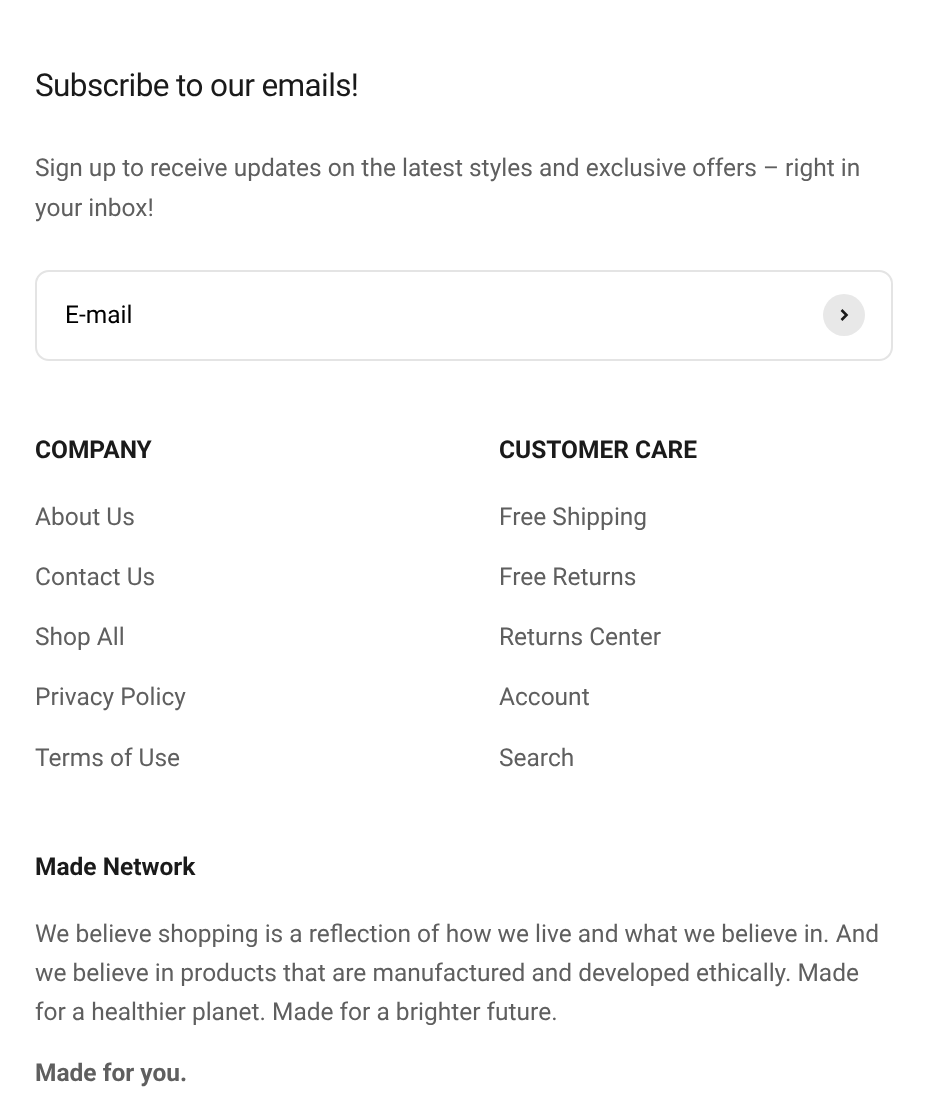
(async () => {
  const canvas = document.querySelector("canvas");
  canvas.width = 927;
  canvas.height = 1114;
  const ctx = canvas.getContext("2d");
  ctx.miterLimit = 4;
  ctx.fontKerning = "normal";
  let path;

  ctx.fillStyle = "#ffffff";
  ctx.fillRect(0, 0, 927, 1114);
  ctx.beginPath();
  ctx.roundRect(36, 271, 856, 89, 13);
  ctx.strokeStyle = "#e4e4e4";
  ctx.lineWidth = 2;
  ctx.stroke();
  ctx.fillStyle = "#e8e8e8";
  ctx.beginPath();
  ctx.arc(844, 315, 21, 0, Math.PI * 2);
  ctx.fill();
  path = new Path2D("M841.5 320L846.5 315L841.5 310");
  ctx.strokeStyle = "#1a1a1a";
  ctx.lineWidth = 2.6;
  ctx.stroke(path);
  ctx.letterSpacing = "-0.6px";
  ctx.font = "31.5px Roboto";
  ctx.fillStyle = "#1a1a1a";
  ctx.fillText("Subscribe to our emails!", 35, 96);
  ctx.letterSpacing = "0px";
  ctx.font = "24.5px Roboto";
  ctx.fillStyle = "#5f5f5f";
  ctx.fillText("Sign up to receive updates on the latest styles and exclusive offers – right in", 35, 176);
  ctx.fillText("your inbox!", 35, 216);
  ctx.fillStyle = "#000000";
  ctx.fillText("E-mail", 65, 323);
  ctx.font = "bold 24.5px Roboto";
  ctx.fillStyle = "#1a1a1a";
  ctx.fillText("COMPANY", 35, 458);
  ctx.font = "24.5px Roboto";
  ctx.fillStyle = "#5f5f5f";
  for (const [text, x, y] of [
    ["About Us", 35, 525],
    ["Contact Us", 35, 585],
    ["Shop All", 35, 645],
    ["Privacy Policy", 35, 705],
    ["Terms of Use", 35, 766],
  ]) {
    ctx.fillText(text, x, y);
  }
  ctx.font = "bold 24.5px Roboto";
  ctx.fillStyle = "#1a1a1a";
  ctx.fillText("CUSTOMER CARE", 499, 458);
  ctx.font = "24.5px Roboto";
  ctx.fillStyle = "#5f5f5f";
  for (const [text, x, y] of [
    ["Free Shipping", 499, 525],
    ["Free Returns", 499, 585],
    ["Returns Center", 499, 645],
    ["Account", 499, 705],
    ["Search", 499, 766],
  ]) {
    ctx.fillText(text, x, y);
  }
  ctx.font = "bold 24.5px Roboto";
  ctx.fillStyle = "#1a1a1a";
  ctx.fillText("Made Network", 35, 875);
  ctx.font = "24.5px Roboto";
  ctx.fillStyle = "#5f5f5f";
  for (const [text, x, y] of [
    ["We believe shopping is a reflection of how we live and what we believe in. And", 35, 942],
    ["we believe in products that are manufactured and developed ethically. Made", 35, 981],
    ["for a healthier planet. Made for a brighter future.", 35, 1020],
  ]) {
    ctx.fillText(text, x, y);
  }
  ctx.font = "bold 24.5px Roboto";
  ctx.fillText("Made for you.", 35, 1081);
})();
